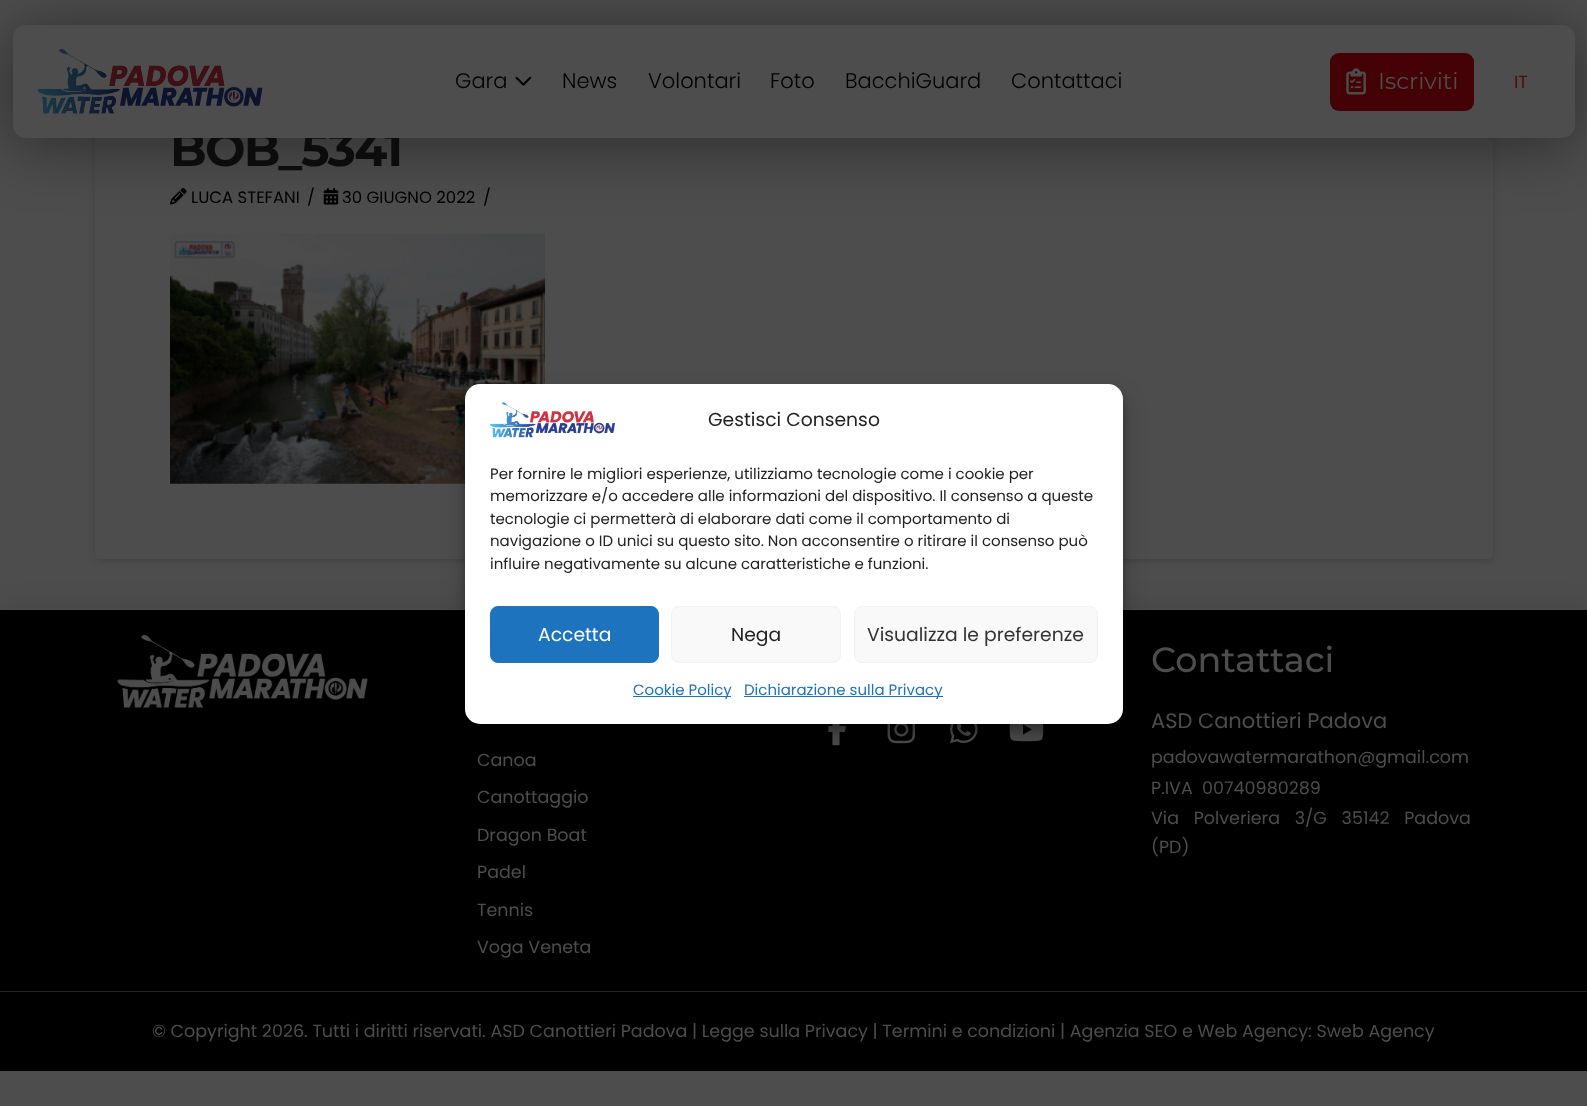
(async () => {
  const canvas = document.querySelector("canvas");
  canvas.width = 1587;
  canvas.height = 1106;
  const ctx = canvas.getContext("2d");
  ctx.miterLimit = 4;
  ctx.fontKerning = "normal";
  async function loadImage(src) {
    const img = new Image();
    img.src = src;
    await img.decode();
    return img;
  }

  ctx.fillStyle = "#4d4d4d";
  ctx.fillRect(0, 0, 1587, 1106);
  ctx.fillStyle = "rgba(0, 0, 0, 0.13)";
  ctx.filter = "blur(3px)";
  ctx.beginPath();
  ctx.roundRect(95, 53, 1398, 508, 5);
  ctx.fill();
  ctx.filter = "none";
  ctx.fillStyle = "#4d4d4d";
  ctx.beginPath();
  ctx.roundRect(95, 50, 1398, 509, 5);
  ctx.fill();
  ctx.drawImage(await loadImage("img/4.png"), 170, 188, 17, 17);
  ctx.drawImage(await loadImage("img/5.png"), 323, 188, 16, 17);
  ctx.drawImage(await loadImage("img/6.png"), 170, 233, 375, 251);
  ctx.fillStyle = "rgba(0, 0, 0, 0.42)";
  ctx.filter = "blur(31px)";
  ctx.beginPath();
  ctx.roundRect(11, 30, 1565, 115, 14);
  ctx.fill();
  ctx.filter = "none";
  ctx.fillStyle = "rgba(0, 0, 0, 0.15)";
  ctx.filter = "blur(15.5px)";
  ctx.beginPath();
  ctx.rect(0, 613, 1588, 383);
  ctx.fill();
  ctx.filter = "none";
  for (const [x, y, w, h, color] of [
    [0, 610, 1587, 461, "#000000"],
    [0, 609, 1587, 1, "#4d4d4d"],
    [0, 991, 1587, 1, "#242424"],
  ]) {
    ctx.fillStyle = color;
    ctx.fillRect(x, y, w, h);
  }
  ctx.drawImage(await loadImage("img/7.png"), 117, 635, 251, 73);
  ctx.drawImage(await loadImage("img/8.png"), 828, 724, 18, 22);
  ctx.drawImage(await loadImage("img/9.png"), 887, 724, 29, 20);
  ctx.drawImage(await loadImage("img/10.png"), 950, 724, 28, 20);
  ctx.drawImage(await loadImage("img/11.png"), 1009, 724, 35, 18);
  ctx.fillStyle = "rgba(0, 0, 0, 0.23)";
  ctx.filter = "blur(4px)";
  ctx.beginPath();
  ctx.roundRect(465, 391, 658, 340, 15);
  ctx.fill();
  ctx.filter = "none";
  ctx.fillStyle = "rgba(0, 0, 0, 0.19)";
  ctx.filter = "blur(12.5px)";
  ctx.beginPath();
  ctx.roundRect(465, 396, 658, 340, 15);
  ctx.fill();
  ctx.filter = "none";
  ctx.fillStyle = "#ffffff";
  ctx.beginPath();
  ctx.roundRect(465, 384, 658, 340, 15);
  ctx.fill();
  ctx.drawImage(await loadImage("img/12.png"), 490, 402, 125, 36);
  ctx.fillStyle = "#1e73be";
  ctx.beginPath();
  ctx.roundRect(490.5, 606.5, 168, 56, 7.5);
  ctx.fill();
  ctx.strokeStyle = "#1e73be";
  ctx.stroke();
  ctx.fillStyle = "#f9f9f9";
  ctx.beginPath();
  ctx.roundRect(671.5, 606.5, 169, 56, 7.5);
  ctx.fill();
  ctx.strokeStyle = "#f2f2f2";
  ctx.stroke();
  ctx.beginPath();
  ctx.roundRect(854.5, 606.5, 243, 56, 7.5);
  ctx.fill();
  ctx.stroke();
  ctx.fillStyle = "#1e73be";
  ctx.fillRect(633, 696, 98, 1);
  ctx.fillRect(744, 696, 199, 1);
  ctx.letterSpacing = "-1.75px";
  ctx.font = "bold 48px Montserrat";
  ctx.fillStyle = "#0c0c0c";
  ctx.fillText("BOB_5341", 170, 166);
  ctx.fillStyle = "#4d4d4d";
  ctx.beginPath();
  ctx.roundRect(13, 25, 1562, 113, 13);
  ctx.fill();
  ctx.letterSpacing = "0px";
  ctx.font = "300 21px Poppins";
  ctx.fillStyle = "#000000";
  for (const [text, x, y] of [
    ["Contattaci", 1011, 88],
    ["BacchiGuard", 845, 88],
    ["Foto", 770, 88],
    ["Volontari", 648, 88],
    ["News", 562, 88],
  ]) {
    ctx.fillText(text, x, y);
  }
  ctx.drawImage(await loadImage("img/2.png"), 515, 76, 17, 10);
  ctx.fillText("Gara", 455, 88);
  ctx.fillStyle = "#440206";
  ctx.beginPath();
  ctx.roundRect(1330, 53, 144, 58, 9);
  ctx.fill();
  ctx.drawImage(await loadImage("img/3.png"), 1346, 68, 20, 27);
  ctx.font = "23px Montserrat";
  ctx.fillStyle = "#4d4d4d";
  ctx.fillText("Iscriviti", 1378, 89);
  ctx.font = "17.5px Poppins";
  ctx.fillStyle = "#4d0d06";
  ctx.fillText("IT", 1514, 88);
  ctx.drawImage(await loadImage("img/1.png"), 38, 49, 225, 65);
  ctx.font = "16.5px Poppins";
  ctx.fillStyle = "#000000";
  for (const [text, x, y] of [
    ["LUCA STEFANI", 191, 203],
    ["/", 307, 203],
    ["30 GIUGNO 2022", 342, 203],
    ["/", 483, 203],
  ]) {
    ctx.fillText(text, x, y);
  }
  ctx.font = "500 35px Montserrat";
  ctx.fillStyle = "#4d4d4d";
  ctx.fillText("Contattaci", 1151, 672);
  ctx.font = "21px Poppins";
  ctx.fillText("ASD Canottieri Padova", 1151, 728);
  ctx.font = "17.5px Poppins";
  ctx.fillText("padovawatermarathon@gmail.com", 1151, 763);
  ctx.fillText("P.IVA  00740980289", 1151, 794);
  ctx.wordSpacing = "10px";
  ctx.fillText("Via Polveriera 3/G 35142 Padova", 1151, 824);
  ctx.wordSpacing = "0px";
  for (const [text, x, y] of [
    ["(PD)", 1151, 853],
    ["Canoa", 477, 766],
    ["Canottaggio", 477, 803],
    ["Dragon Boat", 477, 841],
    ["Padel", 477, 878],
    ["Tennis", 477, 916],
    ["Voga Veneta", 477, 953],
    ["© Copyright 2026. Tutti i diritti riservati. ASD Canottieri Padova | Legge sulla Privacy | Termini e condizioni | Agenzia SEO e Web Agency: Sweb Agency", 152, 1037],
  ]) {
    ctx.fillText(text, x, y);
  }
  ctx.font = "18.75px Poppins";
  ctx.fillStyle = "#222222";
  ctx.fillText("Gestisci Consenso", 708, 426);
  ctx.font = "15px Poppins";
  for (const [text, x, y] of [
    ["Per fornire le migliori esperienze, utilizziamo tecnologie come i cookie per", 490, 479],
    ["memorizzare e/o accedere alle informazioni del dispositivo. Il consenso a queste", 490, 501],
    ["tecnologie ci permetterà di elaborare dati come il comportamento di", 490, 524],
    ["navigazione o ID unici su questo sito. Non acconsentire o ritirare il consenso può", 490, 546],
    ["influire negativamente su alcune caratteristiche e funzioni.", 490, 569],
  ]) {
    ctx.fillText(text, x, y);
  }
  ctx.font = "18.75px Poppins";
  ctx.fillStyle = "#ffffff";
  ctx.fillText("Accetta", 538, 641);
  ctx.fillStyle = "#222222";
  ctx.fillText("Nega", 731, 641);
  ctx.fillStyle = "#333333";
  ctx.fillText("Visualizza le preferenze", 867, 641);
  ctx.font = "15px Poppins";
  ctx.fillStyle = "#1e73be";
  ctx.fillText("Cookie Policy", 633, 695);
  ctx.fillText("Dichiarazione sulla Privacy", 744, 695);
})();
